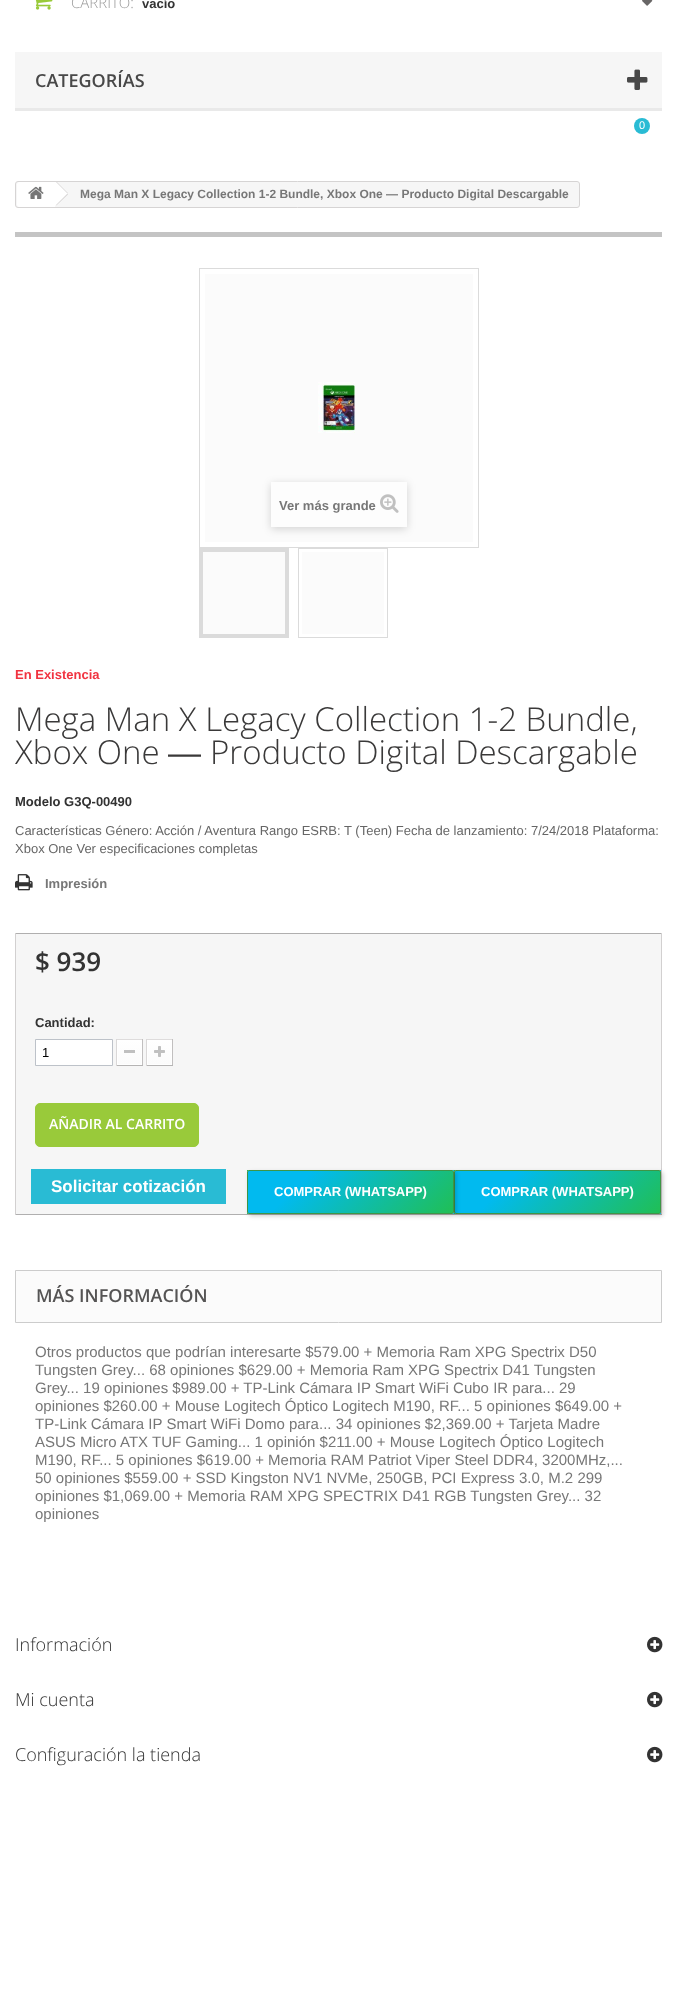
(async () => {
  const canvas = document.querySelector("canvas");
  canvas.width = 677;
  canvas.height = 2015;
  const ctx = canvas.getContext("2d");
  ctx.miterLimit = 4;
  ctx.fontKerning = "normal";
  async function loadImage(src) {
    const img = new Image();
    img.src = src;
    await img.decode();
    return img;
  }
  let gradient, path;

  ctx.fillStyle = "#ffffff";
  ctx.fillRect(0, 0, 677, 2015);
  ctx.drawImage(await loadImage("img/1.png"), 35, 0, 18, 10);
  ctx.drawImage(await loadImage("img/2.png"), 642, 0, 11, 6);
  ctx.fillStyle = "#f6f6f6";
  ctx.fillRect(15, 52, 647, 56);
  ctx.fillStyle = "#e9e9e9";
  ctx.fillRect(15, 108, 647, 3);
  ctx.drawImage(await loadImage("img/3.png"), 627, 69, 21, 21);
  ctx.fillStyle = "#29bbd4";
  ctx.beginPath();
  ctx.arc(642, 126, 8, 0, Math.PI * 2);
  ctx.fill();
  ctx.fillStyle = "#f6f6f6";
  ctx.beginPath();
  ctx.roundRect(15.5, 181.5, 564, 26, 2.5);
  ctx.fill();
  ctx.strokeStyle = "#d6d4d4";
  ctx.stroke();
  ctx.fillStyle = "#ffffff";
  ctx.beginPath();
  ctx.roundRect(17, 182, 38, 25, [3, 0, 0, 3]);
  ctx.fill();
  ctx.drawImage(await loadImage("img/4.png"), 28, 186, 16, 13);
  path = new Path2D("M57.5 182H54.5L44.5 192C44 193 44 194 44.5 195L54.5 205C55.5 205.5 56.5 205.5 57.5 205L67.5 195C68 194 68 193 67.5 192Z");
  ctx.fill(path);
  ctx.fillStyle = "#d6d4d4";
  path = new Path2D("M56.5 181.5L68 193L67.5 193.5L56 182Z");
  ctx.fill(path);
  path = new Path2D("M67.5 193.5L68 194.5L56.5 205.5L56 205Z");
  ctx.fill(path);
  ctx.fillStyle = "#c4c4c4";
  ctx.fillRect(15, 232, 647, 5);
  ctx.strokeStyle = "#dbdbdb";
  ctx.strokeRect(199.5, 268.5, 279, 279);
  ctx.fillStyle = "#fbfbfb";
  ctx.fillRect(205, 274, 268, 268);
  ctx.drawImage(await loadImage("img/5.png"), 318, 382, 37, 51);
  ctx.fillStyle = "rgba(0, 0, 0, 0.16)";
  ctx.filter = "blur(4px)";
  ctx.beginPath();
  ctx.rect(271, 484, 136, 45);
  ctx.fill();
  ctx.filter = "none";
  ctx.fillStyle = "#fdfdfd";
  ctx.fillRect(271, 482, 136, 45);
  ctx.drawImage(await loadImage("img/6.png"), 380, 494, 19, 19);
  ctx.strokeRect(199.5, 548.5, 89, 89);
  ctx.fillStyle = "#fbfbfb";
  ctx.beginPath();
  ctx.rect(201.5, 550.5, 85, 85);
  ctx.fill();
  ctx.lineWidth = 3;
  ctx.stroke();
  ctx.lineWidth = 1;
  ctx.strokeRect(298.5, 548.5, 89, 89);
  ctx.fillRect(302, 552, 82, 82);
  ctx.drawImage(await loadImage("img/7.png"), 15, 874, 18, 17);
  for (const [x, y, w, h, color] of [
    [16, 934, 645, 280, "#f6f6f6"],
    [15, 933, 647, 1, "#b0afaf"],
    [661, 933, 1, 282, "#d2d0d0"],
    [15, 1214, 647, 1, "#b0afaf"],
    [15, 933, 1, 282, "#d2d0d0"],
  ]) {
    ctx.fillStyle = color;
    ctx.fillRect(x, y, w, h);
  }
  ctx.fillStyle = "#ffffff";
  ctx.beginPath();
  ctx.rect(35.5, 1039.5, 77, 26);
  ctx.fill();
  ctx.strokeStyle = "#bdc2c9";
  ctx.stroke();
  for (const [x, y, w, h, color] of [
    [116, 1039, 27, 1, "#dedcdc"],
    [142, 1039, 1, 27, "#c1bfbf"],
    [116, 1065, 27, 1, "#b5b4b4"],
    [116, 1039, 1, 27, "#dad8d8"],
  ]) {
    ctx.fillStyle = color;
    ctx.fillRect(x, y, w, h);
  }
  gradient = ctx.createLinearGradient(130, 1041, 130, 1064);
  gradient.addColorStop(0, "#ffffff");
  gradient.addColorStop(1, "#fbfbfb");
  ctx.fillStyle = gradient;
  ctx.fillRect(118, 1041, 23, 23);
  ctx.strokeStyle = "#ffffff";
  ctx.strokeRect(117.5, 1040.5, 24, 24);
  for (const [x, y, w, h, color] of [
    [124, 1050, 11, 3, "#c0c0c0"],
    [146, 1039, 27, 1, "#dedcdc"],
    [172, 1039, 1, 27, "#c1bfbf"],
    [146, 1065, 27, 1, "#b5b4b4"],
    [146, 1039, 1, 27, "#dad8d8"],
  ]) {
    ctx.fillStyle = color;
    ctx.fillRect(x, y, w, h);
  }
  gradient = ctx.createLinearGradient(160, 1041, 160, 1064);
  gradient.addColorStop(0, "#ffffff");
  gradient.addColorStop(1, "#fbfbfb");
  ctx.fillStyle = gradient;
  ctx.fillRect(148, 1041, 23, 23);
  ctx.strokeRect(147.5, 1040.5, 24, 24);
  ctx.drawImage(await loadImage("img/8.png"), 154, 1046, 11, 11);
  ctx.fillStyle = "#99ca3a";
  ctx.beginPath();
  ctx.roundRect(35.5, 1103.5, 163, 43, 4.5);
  ctx.fill();
  ctx.strokeStyle = "#99ca3a";
  ctx.stroke();
  ctx.fillStyle = "#29bbd4";
  ctx.fillRect(31, 1169, 195, 35);
  ctx.fillStyle = "rgba(0, 0, 0, 0.2)";
  ctx.filter = "blur(2px)";
  ctx.beginPath();
  ctx.roundRect(456, 1172, 207, 44, 2);
  ctx.fill();
  ctx.filter = "none";
  gradient = ctx.createLinearGradient(414, 1212, 291, 1088);
  gradient.addColorStop(0, "#20bf55");
  gradient.addColorStop(0.74, "#01baef");
  ctx.fillStyle = gradient;
  ctx.fillRect(454, 1170, 1, 1);
  gradient = ctx.createLinearGradient(619, 1254, 496, 1130);
  gradient.addColorStop(0, "#20bf55");
  gradient.addColorStop(0.74, "#01baef");
  ctx.fillStyle = gradient;
  ctx.fillRect(455, 1171, 205, 42);
  gradient = ctx.createLinearGradient(414, 1296, 291, 1172);
  gradient.addColorStop(0, "#20bf55");
  gradient.addColorStop(0.74, "#01baef");
  ctx.fillStyle = gradient;
  ctx.fillRect(454, 1213, 1, 1);
  gradient = ctx.createLinearGradient(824, 1212, 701, 1088);
  gradient.addColorStop(0, "#20bf55");
  gradient.addColorStop(0.74, "#01baef");
  ctx.fillStyle = gradient;
  ctx.fillRect(660, 1170, 1, 1);
  gradient = ctx.createLinearGradient(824, 1296, 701, 1172);
  gradient.addColorStop(0, "#20bf55");
  gradient.addColorStop(0.74, "#01baef");
  ctx.fillStyle = gradient;
  ctx.fillRect(660, 1213, 1, 1);
  ctx.beginPath();
  ctx.roundRect(454.5, 1170.5, 206, 43, 1.5);
  ctx.strokeStyle = "#3e9546";
  ctx.stroke();
  ctx.fillStyle = "rgba(0, 0, 0, 0.2)";
  ctx.filter = "blur(2px)";
  ctx.beginPath();
  ctx.roundRect(249, 1172, 207, 44, 2);
  ctx.fill();
  ctx.filter = "none";
  gradient = ctx.createLinearGradient(207, 1212, 84, 1088);
  gradient.addColorStop(0, "#20bf55");
  gradient.addColorStop(0.74, "#01baef");
  ctx.fillStyle = gradient;
  ctx.fillRect(247, 1170, 1, 1);
  gradient = ctx.createLinearGradient(617, 1212, 494, 1088);
  gradient.addColorStop(0, "#20bf55");
  gradient.addColorStop(0.74, "#01baef");
  ctx.fillStyle = gradient;
  ctx.fillRect(453, 1170, 1, 1);
  gradient = ctx.createLinearGradient(412, 1254, 289, 1130);
  gradient.addColorStop(0, "#20bf55");
  gradient.addColorStop(0.74, "#01baef");
  ctx.fillStyle = gradient;
  ctx.fillRect(248, 1171, 205, 42);
  gradient = ctx.createLinearGradient(207, 1296, 84, 1172);
  gradient.addColorStop(0, "#20bf55");
  gradient.addColorStop(0.74, "#01baef");
  ctx.fillStyle = gradient;
  ctx.fillRect(247, 1213, 1, 1);
  gradient = ctx.createLinearGradient(617, 1296, 494, 1172);
  gradient.addColorStop(0, "#20bf55");
  gradient.addColorStop(0.74, "#01baef");
  ctx.fillStyle = gradient;
  ctx.fillRect(453, 1213, 1, 1);
  ctx.beginPath();
  ctx.roundRect(247.5, 1170.5, 206, 43, 1.5);
  ctx.stroke();
  ctx.fillStyle = "#fbfbfb";
  ctx.beginPath();
  ctx.rect(15.5, 1270.5, 646, 52);
  ctx.fill();
  ctx.strokeStyle = "#cccccc";
  ctx.stroke();
  ctx.drawImage(await loadImage("img/9.png"), 647, 1636, 16, 17);
  ctx.drawImage(await loadImage("img/9.png"), 647, 1691, 16, 17);
  ctx.drawImage(await loadImage("img/9.png"), 647, 1746, 16, 17);
  ctx.font = "300 15px Open Sans";
  ctx.fillStyle = "#999999";
  ctx.fillText("CARRITO:", 71, 8);
  ctx.font = "bold 13px Liberation Sans";
  ctx.fillStyle = "#333333";
  ctx.fillText("vacío", 142, 8);
  ctx.font = "600 18px Open Sans";
  ctx.fillStyle = "#484848";
  ctx.fillText("CATEGORÍAS", 35, 87);
  ctx.font = "11px Liberation Sans";
  ctx.fillStyle = "#ffffff";
  ctx.fillText("0", 639, 129);
  ctx.font = "bold 12px Liberation Sans";
  ctx.fillStyle = "#777777";
  ctx.fillText("Mega Man X Legacy Collection 1-2 Bundle, Xbox One ― Producto Digital Descargable", 80, 198);
  ctx.font = "bold 13px Liberation Sans";
  ctx.fillText("Ver más grande", 279, 510);
  ctx.fillStyle = "#f13340";
  ctx.fillText("En Existencia", 15, 679);
  ctx.font = "300 33px Open Sans";
  ctx.fillStyle = "#3a3939";
  ctx.fillText("Mega Man X Legacy Collection 1-2 Bundle,", 15, 731);
  ctx.fillText("Xbox One", 15, 764);
  ctx.font = "33px Liberation Sans";
  ctx.fillText("―", 168, 764);
  ctx.font = "300 33px Open Sans";
  ctx.fillText("Producto Digital Descargable", 210, 764);
  ctx.font = "bold 13px Liberation Sans";
  ctx.fillStyle = "#333333";
  ctx.fillText("Modelo G3Q-00490", 15, 806);
  ctx.font = "13px Liberation Sans";
  ctx.fillStyle = "#666666";
  ctx.fillText("Características Género: Acción / Aventura Rango ESRB: T (Teen) Fecha de lanzamiento: 7/24/2018 Plataforma:", 15, 835);
  ctx.fillText("Xbox One Ver especificaciones completas", 15, 853);
  ctx.font = "bold 13px Liberation Sans";
  ctx.fillStyle = "#777777";
  ctx.fillText("Impresión", 45, 888);
  ctx.font = "600 26px Open Sans";
  ctx.fillStyle = "#333333";
  ctx.fillText("$ 939", 35, 971);
  ctx.font = "bold 13px Liberation Sans";
  ctx.fillText("Cantidad:", 35, 1027);
  ctx.font = "13px Liberation Sans";
  ctx.fillStyle = "#000000";
  ctx.fillText("1", 42, 1057);
  ctx.font = "600 14px Open Sans";
  ctx.fillStyle = "#ffffff";
  ctx.fillText("AÑADIR AL CARRITO", 49, 1129);
  ctx.font = "bold 17px Liberation Sans";
  ctx.fillText("Solicitar cotización", 51, 1192);
  ctx.font = "bold 13px Liberation Sans";
  ctx.fillText("COMPRAR (WHATSAPP)", 274, 1196);
  ctx.fillText("COMPRAR (WHATSAPP)", 481, 1196);
  ctx.font = "600 18px Open Sans";
  ctx.fillStyle = "#555454";
  ctx.fillText("MÁS INFORMACIÓN", 36, 1302);
  ctx.font = "15px Liberation Sans";
  ctx.fillStyle = "#777777";
  for (const [text, x, y] of [
    ["Otros productos que podrían interesarte $579.00 + Memoria Ram XPG Spectrix D50", 35, 1357],
    ["Tungsten Grey... 68 opiniones $629.00 + Memoria Ram XPG Spectrix D41 Tungsten", 35, 1375],
    ["Grey... 19 opiniones $989.00 + TP-Link Cámara IP Smart WiFi Cubo IR para... 29", 35, 1393],
    ["opiniones $260.00 + Mouse Logitech Óptico Logitech M190, RF... 5 opiniones $649.00 +", 35, 1411],
    ["TP-Link Cámara IP Smart WiFi Domo para... 34 opiniones $2,369.00 + Tarjeta Madre", 35, 1429],
    ["ASUS Micro ATX TUF Gaming... 1 opinión $211.00 + Mouse Logitech Óptico Logitech", 35, 1447],
    ["M190, RF... 5 opiniones $619.00 + Memoria RAM Patriot Viper Steel DDR4, 3200MHz,...", 35, 1465],
    ["50 opiniones $559.00 + SSD Kingston NV1 NVMe, 250GB, PCI Express 3.0, M.2 299", 35, 1483],
    ["opiniones $1,069.00 + Memoria RAM XPG SPECTRIX D41 RGB Tungsten Grey... 32", 35, 1501],
    ["opiniones", 35, 1519],
  ]) {
    ctx.fillText(text, x, y);
  }
  ctx.font = "300 18px Open Sans";
  ctx.fillStyle = "#333333";
  for (const [text, x, y] of [
    ["Información", 15, 1651],
    ["Mi cuenta", 15, 1706],
    ["Configuración la tienda", 15, 1761],
  ]) {
    ctx.fillText(text, x, y);
  }
})();
